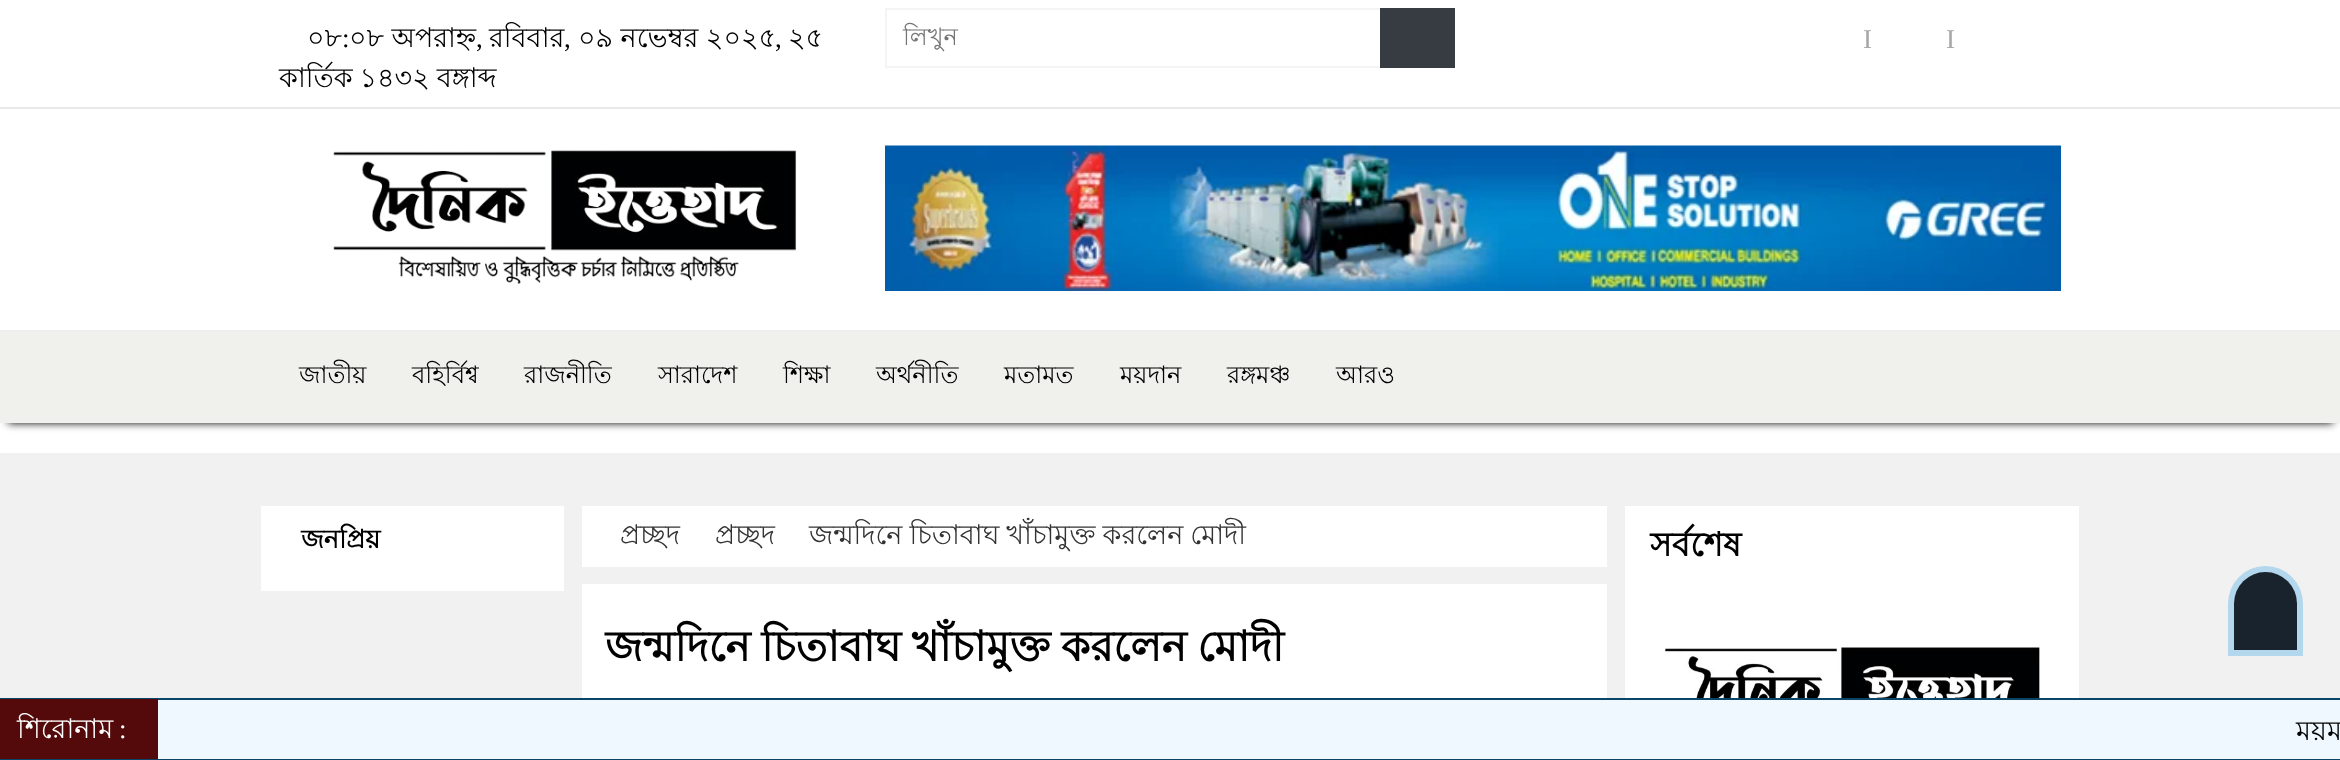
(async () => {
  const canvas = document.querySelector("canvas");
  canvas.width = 2340;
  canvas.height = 760;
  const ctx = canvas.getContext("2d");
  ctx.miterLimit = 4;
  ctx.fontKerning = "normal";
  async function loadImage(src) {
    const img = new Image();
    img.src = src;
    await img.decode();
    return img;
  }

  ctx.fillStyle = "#ffffff";
  ctx.fillRect(0, 0, 2340, 760);
  ctx.fillStyle = "#eeeeee";
  ctx.fillRect(0, 330, 2340, 2);
  ctx.strokeStyle = "#f4f4f4";
  ctx.lineWidth = 2;
  ctx.strokeRect(886, 9, 568, 58);
  ctx.fillStyle = "#363c42";
  ctx.fillRect(1380, 8, 75, 60);
  ctx.fillStyle = "#eae8e8";
  ctx.fillRect(0, 107, 2340, 2);
  ctx.drawImage(await loadImage("img/1.png"), 333, 150, 464, 134);
  ctx.drawImage(await loadImage("img/2.png"), 885, 145, 1176, 146);
  ctx.fillStyle = "#000000";
  ctx.filter = "blur(4px)";
  ctx.beginPath();
  ctx.rect(8, 347, 2325, 76);
  ctx.fill();
  ctx.filter = "none";
  for (const [x, y, w, h, color] of [
    [0, 332, 2340, 91, "#f0f0ed"],
    [0, 453, 2340, 245, "#f1f1f2"],
    [261, 506, 303, 85, "#ffffff"],
    [582, 506, 1025, 61, "#ffffff"],
    [582, 584, 1025, 114, "#ffffff"],
    [1625, 506, 454, 192, "#ffffff"],
  ]) {
    ctx.fillStyle = color;
    ctx.fillRect(x, y, w, h);
  }
  ctx.drawImage(await loadImage("img/3.png"), 1665, 647, 375, 51);
  ctx.fillStyle = "#b3d7ec";
  ctx.beginPath();
  ctx.roundRect(2228, 566, 75, 90, [37.5, 37.5, 0, 0]);
  ctx.fill();
  ctx.fillStyle = "#19232d";
  ctx.beginPath();
  ctx.roundRect(2234, 572, 63, 78, [31.5, 31.5, 0, 0]);
  ctx.fill();
  for (const [x, y, w, h, color] of [
    [158, 700, 2182, 59, "#f0f8ff"],
    [0, 698, 2340, 2, "#0a4466"],
    [0, 759, 2340, 1, "#0a4466"],
    [0, 699, 158, 60, "#540a0a"],
  ]) {
    ctx.fillStyle = color;
    ctx.fillRect(x, y, w, h);
  }
  ctx.font = "27px Lohit Bengali";
  ctx.fillStyle = "#000000";
  ctx.fillText("০৮", 307, 47);
  ctx.font = "27px Liberation Serif";
  ctx.fillText(":", 342, 47);
  ctx.font = "27px Lohit Bengali";
  ctx.fillText("০৮ অপরাহ্ন", 349, 47);
  ctx.font = "27px Liberation Serif";
  ctx.fillText(",", 476, 47);
  ctx.font = "27px Lohit Bengali";
  ctx.fillText("রবিবার", 489, 47);
  ctx.font = "27px Liberation Serif";
  ctx.fillText(",", 564, 47);
  ctx.font = "27px Lohit Bengali";
  ctx.fillText("০৯ নভেম্বর ২০২৫", 578, 47);
  ctx.font = "27px Liberation Serif";
  ctx.fillText(",", 775, 47);
  ctx.font = "27px Lohit Bengali";
  ctx.fillText("২৫", 788, 47);
  ctx.wordSpacing = "-0.5px";
  ctx.fillText("কার্তিক ১৪৩২ বঙ্গাব্দ", 279, 87);
  ctx.wordSpacing = "0px";
  ctx.font = "24px Lohit Bengali";
  ctx.fillStyle = "#757575";
  ctx.fillText("লিখুন", 903, 45);
  ctx.font = "27px Liberation Serif";
  ctx.fillStyle = "#a8a6a6";
  ctx.fillText("I", 1863, 48);
  ctx.fillText("I", 1946, 48);
  ctx.font = "24px Lohit Bengali";
  ctx.fillStyle = "#000000";
  for (const [text, x, y] of [
    ["জাতীয়", 299, 383],
    ["বহির্বিশ্ব", 412, 383],
    ["রাজনীতি", 524, 383],
    ["সারাদেশ", 658, 383],
    ["শিক্ষা", 783, 383],
    ["অর্থনীতি", 876, 383],
    ["মতামত", 1004, 383],
    ["ময়দান", 1120, 383],
    ["রঙ্গমঞ্চ", 1227, 383],
    ["আরও", 1336, 383],
  ]) {
    ctx.fillText(text, x, y);
  }
  ctx.font = "bold 25.5px Lohit Bengali";
  ctx.fillText("জনপ্রিয়", 301, 548);
  ctx.font = "27px Lohit Bengali";
  ctx.fillStyle = "#333333";
  ctx.fillText("প্রচ্ছদ", 620, 544);
  ctx.fillText("প্রচ্ছদ", 715, 544);
  ctx.wordSpacing = "-0.5px";
  ctx.fillText("জন্মদিনে চিতাবাঘ খাঁচামুক্ত করলেন মোদী", 809, 544);
  ctx.wordSpacing = "-1px";
  ctx.font = "bold 42px Lohit Bengali";
  ctx.fillStyle = "#000000";
  ctx.fillText("জন্মদিনে চিতাবাঘ খাঁচামুক্ত করলেন মোদী", 605, 661);
  ctx.wordSpacing = "0px";
  ctx.font = "bold 33px Lohit Bengali";
  ctx.fillText("সর্বশেষ", 1650, 556);
  ctx.font = "27px Lohit Bengali";
  ctx.fillStyle = "#ffffff";
  ctx.fillText("শিরোনাম", 17, 738);
  ctx.font = "27px Liberation Serif";
  ctx.fillText(":", 119, 738);
  ctx.wordSpacing = "-0.5px";
  ctx.font = "27px Lohit Bengali";
  ctx.fillStyle = "#000000";
  ctx.fillText("ময়ম", 2296, 740);
})();
